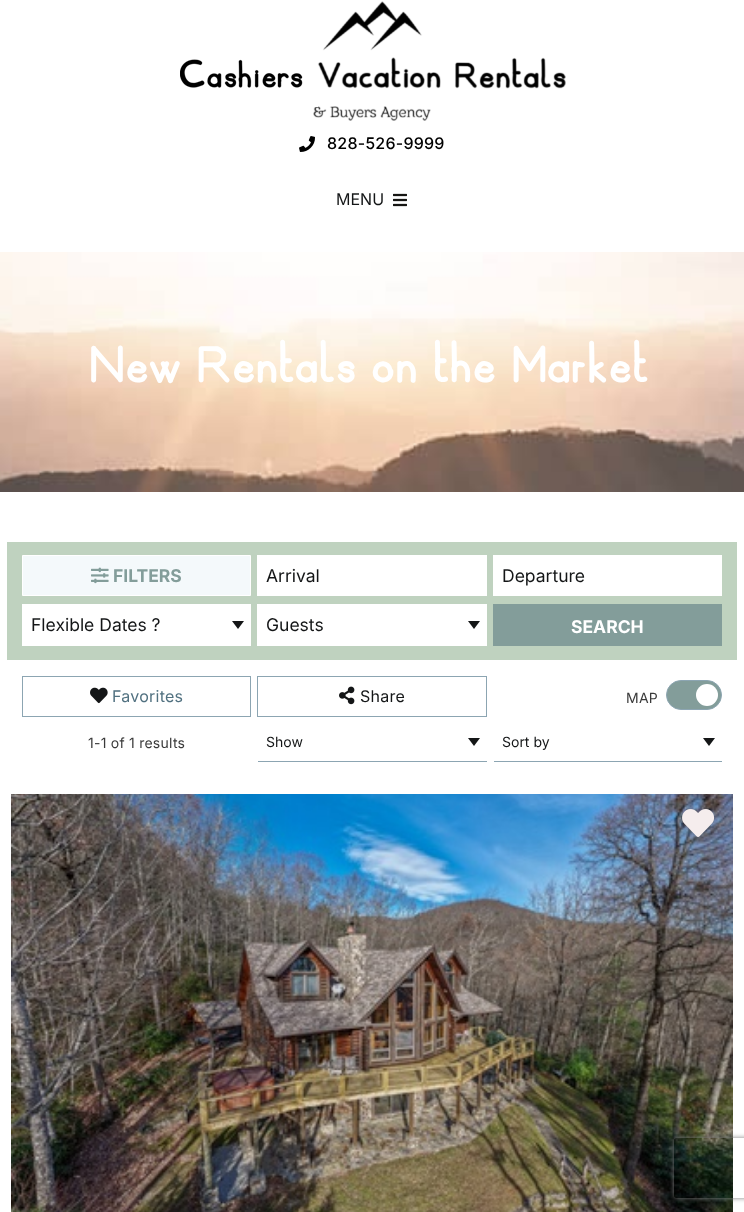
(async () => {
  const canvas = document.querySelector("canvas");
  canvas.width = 744;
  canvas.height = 1212;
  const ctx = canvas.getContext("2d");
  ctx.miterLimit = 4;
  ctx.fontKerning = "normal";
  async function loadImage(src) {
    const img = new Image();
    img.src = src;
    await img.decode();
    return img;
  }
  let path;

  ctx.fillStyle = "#ffffff";
  ctx.fillRect(0, 0, 744, 1212);
  ctx.drawImage(await loadImage("img/1.png"), 180, 1, 386, 120);
  ctx.drawImage(await loadImage("img/2.png"), 299, 136, 16, 16);
  ctx.drawImage(await loadImage("img/3.png"), 393, 193, 14, 14);
  ctx.drawImage(await loadImage("img/4.png"), 0, 252, 744, 240);
  ctx.fillStyle = "#bfd2bf";
  ctx.fillRect(7, 542, 730, 118);
  ctx.fillStyle = "#f4f9fb";
  ctx.beginPath();
  ctx.rect(22.5, 555.5, 228, 40);
  ctx.fill();
  ctx.strokeStyle = "#ffffff";
  ctx.stroke();
  ctx.drawImage(await loadImage("img/5.png"), 91, 567, 18, 17);
  for (const [x, y, w, h, color] of [
    [257, 555, 230, 41, "#ffffff"],
    [493, 555, 229, 41, "#ffffff"],
    [22, 604, 229, 42, "#ffffff"],
  ]) {
    ctx.fillStyle = color;
    ctx.fillRect(x, y, w, h);
  }
  ctx.fillStyle = "#141617";
  path = new Path2D("M232 621L238 629L244 621");
  ctx.fill(path);
  ctx.fillStyle = "#ffffff";
  ctx.fillRect(257, 604, 230, 42);
  ctx.fillStyle = "#141617";
  path = new Path2D("M468 621L474 629L480 621");
  ctx.fill(path);
  ctx.fillStyle = "#839d9a";
  ctx.fillRect(493, 604, 229, 42);
  ctx.strokeStyle = "#8ca5b2";
  ctx.strokeRect(22.5, 676.5, 228, 40);
  ctx.drawImage(await loadImage("img/6.png"), 90, 687, 18, 17);
  ctx.strokeRect(257.5, 676.5, 229, 40);
  ctx.drawImage(await loadImage("img/7.png"), 339, 686, 16, 19);
  ctx.beginPath();
  ctx.roundRect(666.5, 680.5, 55, 29, 14.5);
  ctx.fill();
  ctx.stroke();
  ctx.fillStyle = "#ffffff";
  ctx.beginPath();
  ctx.arc(707, 695, 11, 0, Math.PI * 2);
  ctx.fill();
  ctx.fillStyle = "#141617";
  path = new Path2D("M468 738L474 746L480 738");
  ctx.fill(path);
  ctx.fillStyle = "#8ca5b2";
  ctx.fillRect(257, 761, 230, 1);
  ctx.fillStyle = "#ffffff";
  ctx.fillRect(257, 761, 1, 1);
  ctx.fillStyle = "#141617";
  path = new Path2D("M703 738L709 746L715 738");
  ctx.fill(path);
  ctx.fillStyle = "#8ca5b2";
  ctx.fillRect(493, 761, 229, 1);
  ctx.fillStyle = "#ffffff";
  ctx.fillRect(493, 761, 1, 1);
  ctx.drawImage(await loadImage("img/8.png"), 11, 794, 722, 418);
  ctx.drawImage(await loadImage("img/9.png"), 682, 809, 33, 28);
  ctx.save();
  path = new Path2D("M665 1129H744V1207H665ZM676 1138H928C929 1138 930 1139 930 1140V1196C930 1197 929 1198 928 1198H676C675 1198 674 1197 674 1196V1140C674 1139 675 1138 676 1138Z");
  ctx.clip(path, "evenodd");
  ctx.fillStyle = "#808080";
  ctx.filter = "blur(2.5px)";
  ctx.beginPath();
  ctx.roundRect(674, 1138, 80, 60, 2);
  ctx.fill();
  ctx.filter = "none";
  ctx.restore();
  ctx.letterSpacing = "0.25px";
  ctx.font = "500 16px Inter";
  ctx.fillStyle = "#000000";
  ctx.fillText("828-526-9999", 327, 149);
  ctx.letterSpacing = "0px";
  ctx.font = "16px Inter";
  ctx.fillStyle = "#141617";
  ctx.fillText("MENU", 336, 205);
  ctx.letterSpacing = "-0.8px";
  ctx.font = "bold 54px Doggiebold";
  ctx.fillStyle = "#ffffff";
  ctx.fillText("New Rentals on the Market", 92, 385);
  ctx.letterSpacing = "0px";
  ctx.font = "bold 17.5px Inter";
  ctx.fillStyle = "#839d9a";
  ctx.fillText("FILTERS", 113, 582);
  ctx.font = "17.5px Inter";
  ctx.fillStyle = "#141617";
  for (const [text, x, y] of [
    ["Arrival", 266, 582],
    ["Departure", 502, 582],
    ["Flexible Dates ?", 31, 631],
    ["Guests", 266, 631],
  ]) {
    ctx.fillText(text, x, y);
  }
  ctx.font = "bold 17.5px Inter";
  ctx.fillStyle = "#ffffff";
  ctx.fillText("SEARCH", 571, 633);
  ctx.letterSpacing = "0.25px";
  ctx.font = "16px Inter";
  ctx.fillStyle = "#517180";
  ctx.fillText("Favorites", 112, 702);
  ctx.fillStyle = "#141617";
  ctx.fillText("Share", 360, 702);
  ctx.font = "14px Inter";
  ctx.fillStyle = "#3a3a3a";
  ctx.fillText("MAP", 626, 703);
  ctx.fillText("1-1 of 1 results", 88, 748);
  ctx.letterSpacing = "0px";
  ctx.fillStyle = "#141617";
  ctx.fillText("Show", 266, 747);
  ctx.fillText("Sort by", 502, 747);
})();
